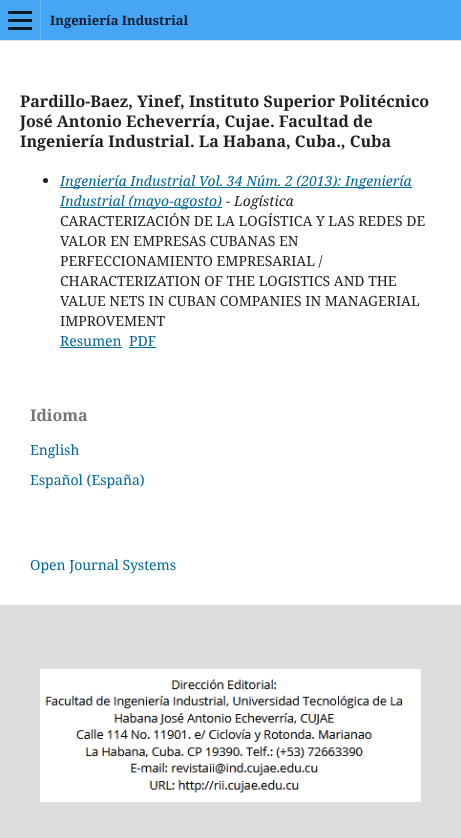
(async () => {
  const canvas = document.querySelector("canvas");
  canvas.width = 461;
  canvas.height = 838;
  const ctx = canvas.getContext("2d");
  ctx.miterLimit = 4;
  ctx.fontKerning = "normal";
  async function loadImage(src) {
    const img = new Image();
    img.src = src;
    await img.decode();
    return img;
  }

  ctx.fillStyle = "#ffffff";
  ctx.fillRect(0, 0, 461, 838);
  for (const [x, y, w, h, color] of [
    [0, 0, 461, 40, "#47a5f6"],
    [0, 40, 461, 1, "#dddddd"],
    [40, 0, 1, 40, "#6cb7f8"],
    [8, 27, 24, 3, "#0b1a27"],
    [8, 11, 24, 3, "#0b1a27"],
    [8, 19, 24, 3, "#0b1a27"],
  ]) {
    ctx.fillStyle = color;
    ctx.fillRect(x, y, w, h);
  }
  ctx.fillStyle = "#212121";
  ctx.beginPath();
  ctx.arc(45.5, 180.5, 2.5, 0, Math.PI * 2);
  ctx.fill();
  for (const [x, y, w, h, color] of [
    [60, 187, 352, 1, "#006798"],
    [60, 207, 162, 1, "#006798"],
    [60, 347, 62, 1, "#006798"],
    [129, 347, 27, 1, "#006798"],
    [0, 605, 461, 233, "#dddddd"],
  ]) {
    ctx.fillStyle = color;
    ctx.fillRect(x, y, w, h);
  }
  ctx.drawImage(await loadImage("img/1.png"), 40, 669, 381, 133);
  ctx.font = "bold 13px Noto Serif";
  ctx.fillStyle = "#0b1a27";
  ctx.fillText("Ingeniería Industrial", 50, 25);
  ctx.font = "bold 16px Noto Serif";
  ctx.fillStyle = "#212121";
  for (const [text, x, y] of [
    ["Pardillo-Baez, Yinef, Instituto Superior Politécnico", 20, 107],
    ["José Antonio Echeverría, Cujae. Facultad de", 20, 127],
    ["Ingeniería Industrial. La Habana, Cuba., Cuba", 20, 147],
  ]) {
    ctx.fillText(text, x, y);
  }
  ctx.font = "italic 14px Noto Serif";
  ctx.fillStyle = "#006798";
  ctx.fillText("Ingeniería Industrial Vol. 34 Núm. 2 (2013): Ingeniería", 60, 186);
  ctx.fillText("Industrial (mayo-agosto)", 60, 206);
  ctx.fillStyle = "#212121";
  ctx.fillText("- Logística", 226, 206);
  ctx.font = "14px Noto Serif";
  for (const [text, x, y] of [
    ["CARACTERIZACIÓN DE LA LOGÍSTICA Y LAS REDES DE", 60, 226],
    ["VALOR EN EMPRESAS CUBANAS EN", 60, 246],
    ["PERFECCIONAMIENTO EMPRESARIAL /", 60, 266],
    ["CHARACTERIZATION OF THE LOGISTICS AND THE", 60, 286],
    ["VALUE NETS IN CUBAN COMPANIES IN MANAGERIAL", 60, 306],
    ["IMPROVEMENT", 60, 326],
  ]) {
    ctx.fillText(text, x, y);
  }
  ctx.fillStyle = "#006798";
  ctx.fillText("Resumen", 60, 346);
  ctx.fillText("PDF", 129, 346);
  ctx.font = "bold 16px Noto Serif";
  ctx.fillStyle = "#757575";
  ctx.fillText("Idioma", 30, 421);
  ctx.font = "14px Noto Serif";
  ctx.fillStyle = "#006798";
  for (const [text, x, y] of [
    ["English", 30, 455],
    ["Español (España)", 30, 485],
    ["Open Journal Systems", 30, 570],
  ]) {
    ctx.fillText(text, x, y);
  }
})();
